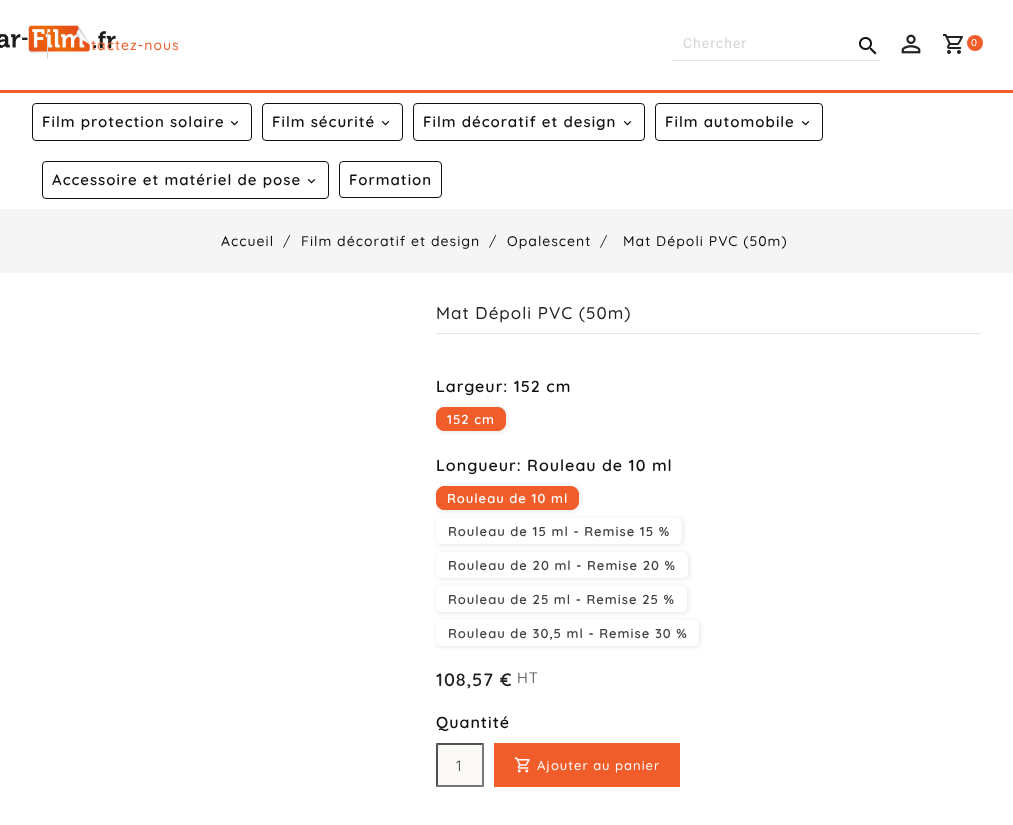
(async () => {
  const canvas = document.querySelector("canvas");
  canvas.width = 1013;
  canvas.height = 825;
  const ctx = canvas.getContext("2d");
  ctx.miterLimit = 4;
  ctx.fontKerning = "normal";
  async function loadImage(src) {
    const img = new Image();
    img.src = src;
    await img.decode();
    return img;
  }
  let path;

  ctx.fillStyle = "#ffffff";
  ctx.fillRect(0, 0, 1013, 825);
  ctx.fillStyle = "#f15d2a";
  ctx.fillRect(0, 90, 1013, 3);
  ctx.drawImage(await loadImage("img/1.png"), 0, 25, 116, 29);
  ctx.fillStyle = "#d7d7d7";
  ctx.fillRect(47, 31, 1, 28);
  ctx.fillStyle = "#e5e5e5";
  ctx.fillRect(672, 60, 209, 1);
  ctx.drawImage(await loadImage("img/2.png"), 859, 37, 18, 18);
  ctx.drawImage(await loadImage("img/3.png"), 901, 34, 20, 20);
  ctx.drawImage(await loadImage("img/4.png"), 943, 34, 20, 20);
  ctx.fillStyle = "#f15d2a";
  ctx.beginPath();
  ctx.arc(975, 43, 8, 0, Math.PI * 2);
  ctx.fill();
  ctx.beginPath();
  ctx.roundRect(32.5, 103.5, 219, 37, 3.5);
  ctx.strokeStyle = "#111111";
  ctx.stroke();
  ctx.drawImage(await loadImage("img/5.png"), 230, 121, 9, 5);
  ctx.beginPath();
  ctx.roundRect(262.5, 103.5, 140, 37, 3.5);
  ctx.stroke();
  ctx.drawImage(await loadImage("img/5.png"), 381, 121, 9, 5);
  ctx.beginPath();
  ctx.roundRect(413.5, 103.5, 231, 37, 3.5);
  ctx.stroke();
  ctx.drawImage(await loadImage("img/5.png"), 623, 121, 9, 5);
  ctx.beginPath();
  ctx.roundRect(655.5, 103.5, 167, 37, 3.5);
  ctx.stroke();
  ctx.drawImage(await loadImage("img/5.png"), 801, 121, 9, 5);
  ctx.beginPath();
  ctx.roundRect(42.5, 161.5, 286, 37, 3.5);
  ctx.stroke();
  ctx.drawImage(await loadImage("img/5.png"), 307, 179, 9, 5);
  ctx.beginPath();
  ctx.roundRect(339.5, 161.5, 102, 36, 3.5);
  ctx.stroke();
  ctx.fillStyle = "#f5f5f5";
  ctx.fillRect(0, 209, 1013, 64);
  ctx.fillStyle = "#e5e5e5";
  ctx.fillRect(436, 333, 545, 1);
  ctx.fillStyle = "rgba(0, 0, 0, 0.1)";
  ctx.filter = "blur(2.5px)";
  ctx.beginPath();
  ctx.roundRect(437, 408, 70, 24, 8);
  ctx.fill();
  ctx.filter = "none";
  ctx.fillStyle = "#f15d2a";
  ctx.beginPath();
  ctx.roundRect(436.5, 407.5, 69, 23, 7.5);
  ctx.fill();
  ctx.strokeStyle = "#f15d2a";
  ctx.stroke();
  ctx.fillStyle = "rgba(0, 0, 0, 0.1)";
  ctx.filter = "blur(2.5px)";
  ctx.beginPath();
  ctx.roundRect(437, 487, 143, 24, 8);
  ctx.fill();
  ctx.filter = "none";
  ctx.fillStyle = "#f15d2a";
  ctx.beginPath();
  ctx.roundRect(436.5, 486.5, 142, 23, 7.5);
  ctx.fill();
  ctx.stroke();
  ctx.fillStyle = "rgba(0, 0, 0, 0.1)";
  ctx.filter = "blur(2.5px)";
  ctx.beginPath();
  ctx.roundRect(437, 519, 246, 26, 5);
  ctx.fill();
  ctx.filter = "none";
  ctx.fillStyle = "#ffffff";
  ctx.beginPath();
  ctx.roundRect(437, 519, 244, 24, 4);
  ctx.fill();
  ctx.strokeStyle = "#ffffff";
  ctx.lineWidth = 2;
  ctx.stroke();
  ctx.fillStyle = "rgba(0, 0, 0, 0.1)";
  ctx.filter = "blur(2.5px)";
  ctx.beginPath();
  ctx.roundRect(437, 553, 252, 26, 5);
  ctx.fill();
  ctx.filter = "none";
  ctx.fillStyle = "#ffffff";
  ctx.beginPath();
  ctx.roundRect(437, 553, 250, 24, 4);
  ctx.fill();
  ctx.stroke();
  ctx.fillStyle = "rgba(0, 0, 0, 0.1)";
  ctx.filter = "blur(2.5px)";
  ctx.beginPath();
  ctx.roundRect(437, 587, 251, 26, 5);
  ctx.fill();
  ctx.filter = "none";
  ctx.fillStyle = "#ffffff";
  ctx.beginPath();
  ctx.roundRect(437, 587, 249, 24, 4);
  ctx.fill();
  ctx.stroke();
  ctx.fillStyle = "rgba(0, 0, 0, 0.1)";
  ctx.filter = "blur(2.5px)";
  ctx.beginPath();
  ctx.roundRect(437, 621, 263, 26, 5);
  ctx.fill();
  ctx.filter = "none";
  ctx.fillStyle = "#ffffff";
  ctx.beginPath();
  ctx.roundRect(437, 621, 261, 24, 4);
  ctx.fill();
  ctx.stroke();
  ctx.fillStyle = "#faf9f6";
  ctx.fillRect(436, 743, 48, 44);
  ctx.fillStyle = "#4f4f4f";
  path = new Path2D("M436 743H484L482 745H438Z");
  ctx.fill(path);
  ctx.fillStyle = "#767676";
  path = new Path2D("M484 743V787L482 785V745Z");
  ctx.fill(path);
  path = new Path2D("M484 787H436L438 785H482Z");
  ctx.fill(path);
  ctx.fillStyle = "#4f4f4f";
  path = new Path2D("M436 787V743L438 745V785Z");
  ctx.fill(path);
  ctx.fillStyle = "#f15d2a";
  ctx.fillRect(494, 743, 186, 44);
  ctx.drawImage(await loadImage("img/6.png"), 514, 757, 16, 16);
  ctx.letterSpacing = "1px";
  ctx.font = "500 14px Quicksand";
  ctx.fillText("tactez-nous", 91, 50);
  ctx.font = "14px Roboto";
  ctx.fillStyle = "#d6d5d3";
  ctx.fillText("Chercher", 683, 48);
  ctx.font = "500 10px Quicksand";
  ctx.fillStyle = "#ffffff";
  ctx.fillText("0", 971, 46);
  ctx.font = "600 15px Quicksand";
  ctx.fillStyle = "#111111";
  for (const [text, x, y] of [
    ["Film protection solaire", 42, 127],
    ["Film sécurité", 272, 127],
    ["Film décoratif et design", 423, 127],
    ["Film automobile", 665, 127],
    ["Accessoire et matériel de pose", 52, 185],
    ["Formation", 349, 185],
  ]) {
    ctx.fillText(text, x, y);
  }
  ctx.font = "500 14px Quicksand";
  ctx.fillText("Accueil", 221, 246);
  ctx.font = "14px Quicksand";
  ctx.fillText("/", 283, 246);
  ctx.font = "500 14px Quicksand";
  ctx.fillText("Film décoratif et design", 301, 246);
  ctx.font = "14px Quicksand";
  ctx.fillText("/", 489, 246);
  ctx.font = "500 14px Quicksand";
  ctx.fillText("Opalescent", 507, 246);
  ctx.font = "14px Quicksand";
  ctx.fillText("/", 600, 246);
  ctx.font = "500 14px Quicksand";
  ctx.fillText("Mat Dépoli PVC (50m)", 623, 246);
  ctx.font = "500 17px Quicksand";
  ctx.fillStyle = "#222222";
  ctx.fillText("Mat Dépoli PVC (50m)", 436, 319);
  ctx.font = "600 16px Quicksand";
  ctx.fillStyle = "#111111";
  ctx.fillText("Largeur: 152 cm", 436, 392);
  ctx.font = "600 13px Quicksand";
  ctx.fillStyle = "#ffffff";
  ctx.fillText("152 cm", 447, 424);
  ctx.font = "600 16px Quicksand";
  ctx.fillStyle = "#111111";
  ctx.fillText("Longueur: Rouleau de 10 ml", 436, 471);
  ctx.font = "600 13px Quicksand";
  ctx.fillStyle = "#ffffff";
  ctx.fillText("Rouleau de 10 ml", 447, 503);
  ctx.fillStyle = "#414141";
  for (const [text, x, y] of [
    ["Rouleau de 15 ml - Remise 15 %", 448, 536],
    ["Rouleau de 20 ml - Remise 20 %", 448, 570],
    ["Rouleau de 25 ml - Remise 25 %", 448, 604],
    ["Rouleau de 30,5 ml - Remise 30 %", 448, 638],
  ]) {
    ctx.fillText(text, x, y);
  }
  ctx.font = "600 18px Quicksand";
  ctx.fillStyle = "#222222";
  ctx.fillText("108,57 €", 436, 686);
  ctx.font = "15px Quicksand";
  ctx.fillStyle = "#414141";
  ctx.fillText("HT", 517, 683);
  ctx.font = "600 16px Quicksand";
  ctx.fillStyle = "#111111";
  ctx.fillText("Quantité", 436, 728);
  ctx.font = "15px Quicksand";
  ctx.fillStyle = "#414141";
  ctx.fillText("1", 456, 771);
  ctx.font = "500 13px Quicksand";
  ctx.fillStyle = "#ffffff";
  ctx.fillText("Ajouter au panier", 537, 770);
})();
